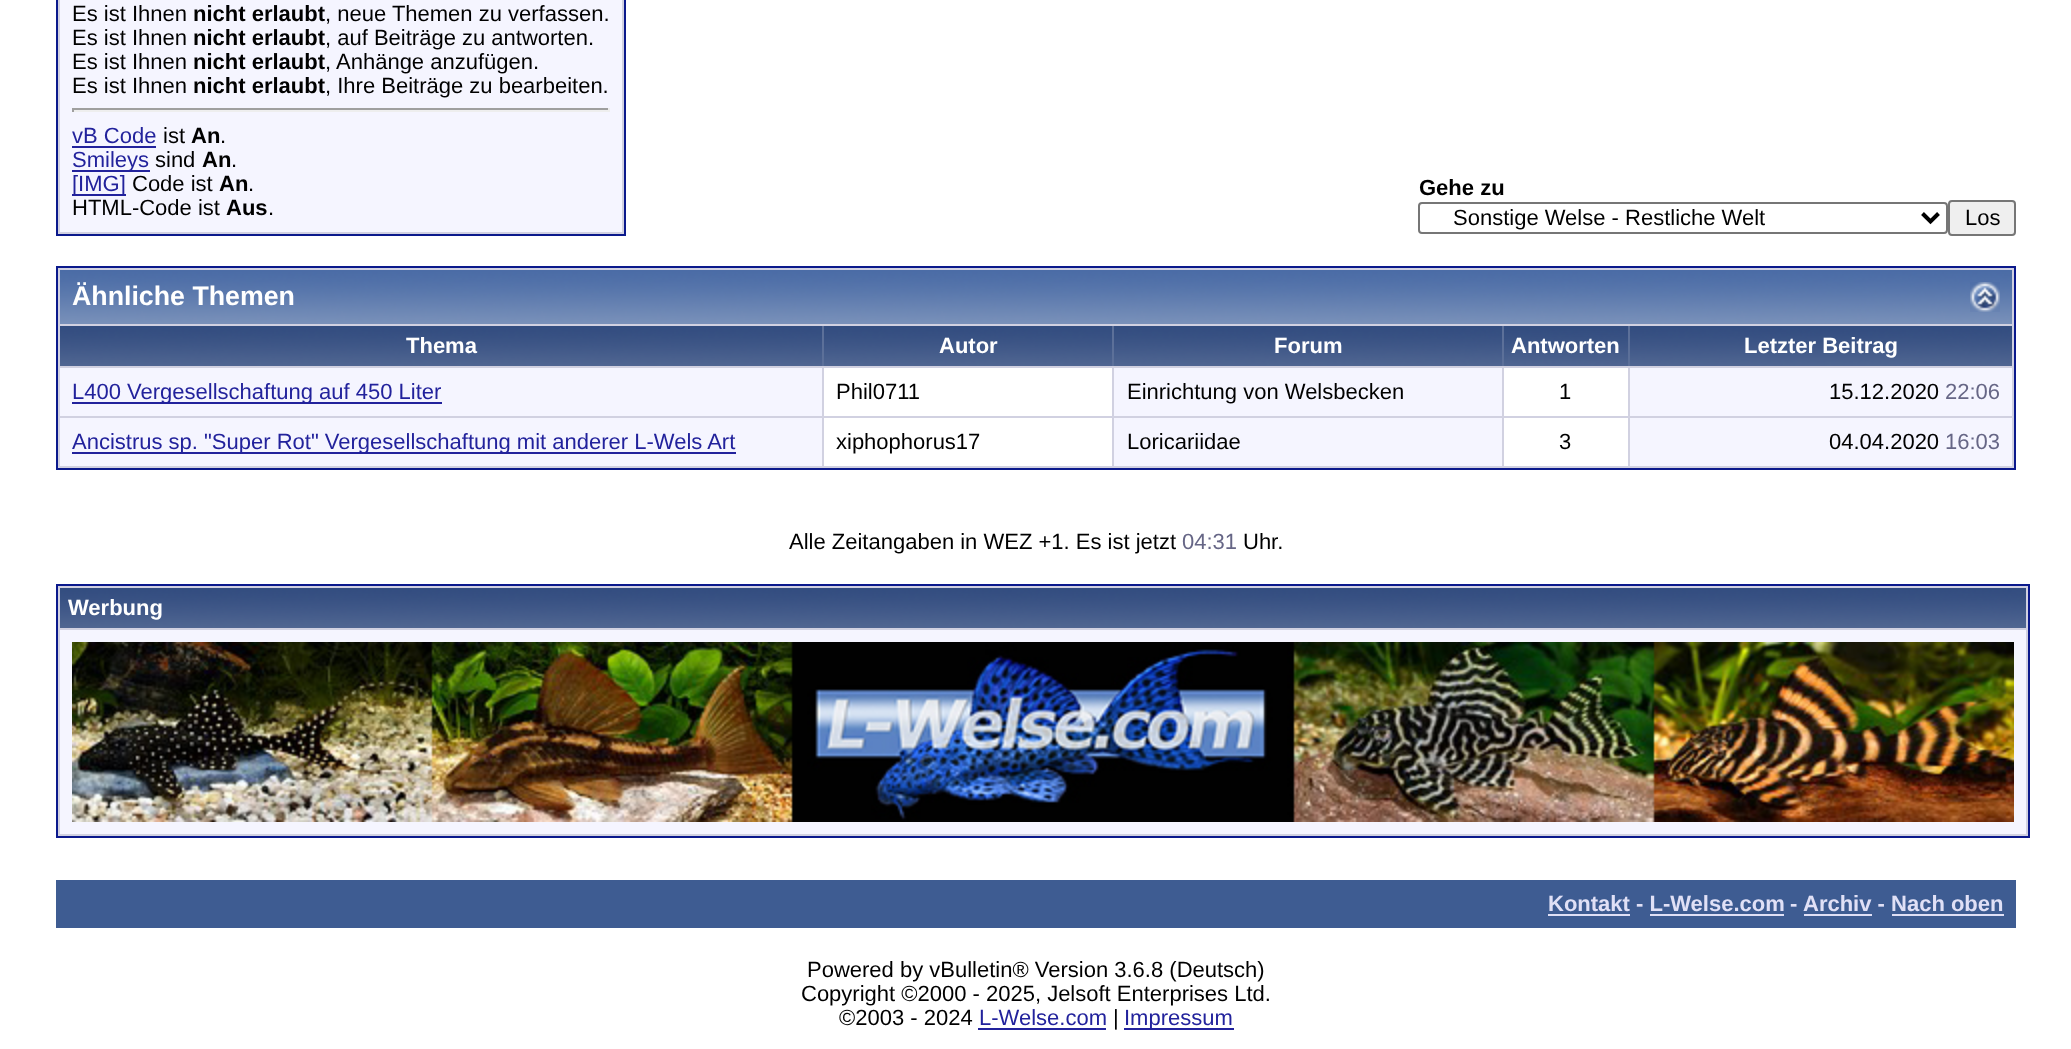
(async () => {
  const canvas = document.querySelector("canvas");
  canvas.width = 2071;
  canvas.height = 1049;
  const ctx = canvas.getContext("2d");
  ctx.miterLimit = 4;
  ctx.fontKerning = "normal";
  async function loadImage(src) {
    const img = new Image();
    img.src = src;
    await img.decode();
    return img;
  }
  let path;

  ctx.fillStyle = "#ffffff";
  ctx.fillRect(0, 0, 2071, 1049);
  ctx.fillStyle = "#d1d1e1";
  ctx.beginPath();
  ctx.rect(57, -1, 568, 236);
  ctx.fill();
  ctx.strokeStyle = "#0b198c";
  ctx.lineWidth = 2;
  ctx.stroke();
  for (const [x, y, w, h, color] of [
    [60, 0, 562, 232, "#f5f5ff"],
    [72, 108, 538, 2, "#9f9f9f"],
    [608, 108, 2, 4, "#eeeeee"],
    [72, 110, 538, 2, "#eeeeee"],
    [72, 108, 2, 4, "#9f9f9f"],
    [72, 146, 84, 2, "#22229c"],
    [72, 170, 78, 2, "#22229c"],
    [72, 194, 54, 2, "#22229c"],
  ]) {
    ctx.fillStyle = color;
    ctx.fillRect(x, y, w, h);
  }
  ctx.beginPath();
  ctx.roundRect(1419, 203, 528, 30, 3);
  ctx.strokeStyle = "#767676";
  ctx.stroke();
  path = new Path2D("M1922.5 213.5L1930.5 221.5L1938.5 213.5");
  ctx.strokeStyle = "#000000";
  ctx.lineWidth = 4;
  ctx.stroke(path);
  ctx.fillStyle = "#efefef";
  ctx.beginPath();
  ctx.roundRect(1949, 201, 66, 34, 3);
  ctx.fill();
  ctx.strokeStyle = "#767676";
  ctx.lineWidth = 2;
  ctx.stroke();
  ctx.fillStyle = "#d1d1e1";
  ctx.beginPath();
  ctx.rect(57, 267, 1958, 202);
  ctx.fill();
  ctx.strokeStyle = "#0b198c";
  ctx.stroke();
  ctx.drawImage(await loadImage("img/1.png"), 60, 270, 1952, 54);
  ctx.drawImage(await loadImage("img/2.png"), 1970, 282, 30, 30);
  ctx.fillStyle = "#5c7099";
  ctx.fillRect(822, 326, 808, 40);
  ctx.drawImage(await loadImage("img/3.png"), 60, 326, 762, 40);
  ctx.drawImage(await loadImage("img/4.png"), 824, 326, 288, 40);
  ctx.drawImage(await loadImage("img/5.png"), 1114, 326, 388, 40);
  ctx.drawImage(await loadImage("img/6.png"), 1504, 326, 124, 40);
  ctx.drawImage(await loadImage("img/7.png"), 1630, 326, 382, 40);
  for (const [x, y, w, h, color] of [
    [60, 368, 762, 48, "#f5f5ff"],
    [72, 402, 370, 2, "#22229c"],
    [824, 368, 288, 48, "#ffffff"],
    [1114, 368, 388, 48, "#f5f5ff"],
    [1504, 368, 124, 48, "#ffffff"],
    [1630, 368, 382, 48, "#f5f5ff"],
    [60, 418, 762, 48, "#f5f5ff"],
    [72, 452, 664, 2, "#22229c"],
    [824, 418, 288, 48, "#ffffff"],
    [1114, 418, 388, 48, "#f5f5ff"],
    [1504, 418, 124, 48, "#ffffff"],
    [1630, 418, 382, 48, "#f5f5ff"],
  ]) {
    ctx.fillStyle = color;
    ctx.fillRect(x, y, w, h);
  }
  ctx.fillStyle = "#d1d1e1";
  ctx.beginPath();
  ctx.rect(57, 585, 1972, 252);
  ctx.fill();
  ctx.stroke();
  ctx.drawImage(await loadImage("img/8.png"), 60, 588, 1966, 40);
  ctx.fillStyle = "#f5f5ff";
  ctx.fillRect(60, 630, 1966, 204);
  ctx.drawImage(await loadImage("img/9.png"), 72, 642, 1942, 180);
  for (const [x, y, w, h, color] of [
    [56, 880, 1960, 48, "#3e5c92"],
    [1548, 914, 82, 2, "#e0e0f6"],
    [1650, 914, 134, 2, "#e0e0f6"],
    [1804, 914, 68, 2, "#e0e0f6"],
    [1892, 914, 112, 2, "#e0e0f6"],
    [978, 1028, 128, 2, "#22229c"],
    [1124, 1028, 110, 2, "#22229c"],
  ]) {
    ctx.fillStyle = color;
    ctx.fillRect(x, y, w, h);
  }
  ctx.font = "22px Liberation Sans";
  ctx.fillStyle = "#000000";
  ctx.fillText("Es ist Ihnen", 72, 21);
  ctx.font = "bold 22px Liberation Sans";
  ctx.fillText("nicht erlaubt", 193, 21);
  ctx.font = "22px Liberation Sans";
  ctx.fillText(", neue Themen zu verfassen.", 325, 21);
  ctx.fillText("Es ist Ihnen", 72, 45);
  ctx.font = "bold 22px Liberation Sans";
  ctx.fillText("nicht erlaubt", 193, 45);
  ctx.font = "22px Liberation Sans";
  ctx.fillText(", auf Beiträge zu antworten.", 325, 45);
  ctx.fillText("Es ist Ihnen", 72, 69);
  ctx.font = "bold 22px Liberation Sans";
  ctx.fillText("nicht erlaubt", 193, 69);
  ctx.font = "22px Liberation Sans";
  ctx.fillText(", Anhänge anzufügen.", 325, 69);
  ctx.fillText("Es ist Ihnen", 72, 93);
  ctx.font = "bold 22px Liberation Sans";
  ctx.fillText("nicht erlaubt", 193, 93);
  ctx.font = "22px Liberation Sans";
  ctx.fillText(", Ihre Beiträge zu bearbeiten.", 325, 93);
  ctx.fillStyle = "#22229c";
  ctx.fillText("vB Code", 72, 143);
  ctx.fillStyle = "#000000";
  ctx.fillText("ist", 163, 143);
  ctx.font = "bold 22px Liberation Sans";
  ctx.fillText("An", 191, 143);
  ctx.font = "22px Liberation Sans";
  ctx.fillText(".", 220, 143);
  ctx.fillStyle = "#22229c";
  ctx.fillText("Smileys", 72, 167);
  ctx.fillStyle = "#000000";
  ctx.fillText("sind", 155, 167);
  ctx.font = "bold 22px Liberation Sans";
  ctx.fillText("An", 202, 167);
  ctx.font = "22px Liberation Sans";
  ctx.fillText(".", 231, 167);
  ctx.fillStyle = "#22229c";
  ctx.fillText("[IMG]", 72, 191);
  ctx.fillStyle = "#000000";
  ctx.fillText("Code ist", 132, 191);
  ctx.font = "bold 22px Liberation Sans";
  ctx.fillText("An", 219, 191);
  ctx.font = "22px Liberation Sans";
  ctx.fillText(".", 248, 191);
  ctx.fillText("HTML-Code ist", 72, 215);
  ctx.font = "bold 22px Liberation Sans";
  ctx.fillText("Aus", 226, 215);
  ctx.font = "22px Liberation Sans";
  ctx.fillText(".", 268, 215);
  ctx.font = "bold 22px Liberation Sans";
  ctx.fillText("Gehe zu", 1419, 195);
  ctx.font = "22px Liberation Sans";
  ctx.fillText("Sonstige Welse - Restliche Welt", 1453, 225);
  ctx.fillText("Los", 1965, 225);
  ctx.font = "bold 26.75px Liberation Sans";
  ctx.fillStyle = "#ffffff";
  ctx.fillText("Ähnliche Themen", 72, 305);
  ctx.font = "bold 22px Liberation Sans";
  for (const [text, x, y] of [
    ["Thema", 406, 353],
    ["Autor", 939, 353],
    ["Forum", 1274, 353],
    ["Antworten", 1511, 353],
    ["Letzter Beitrag", 1744, 353],
  ]) {
    ctx.fillText(text, x, y);
  }
  ctx.font = "22px Liberation Sans";
  ctx.fillStyle = "#22229c";
  ctx.fillText("L400 Vergesellschaftung auf 450 Liter", 72, 399);
  ctx.fillStyle = "#000000";
  for (const [text, x, y] of [
    ["Phil0711", 836, 399],
    ["Einrichtung von Welsbecken", 1127, 399],
    ["1", 1559, 399],
    ["15.12.2020", 1829, 399],
  ]) {
    ctx.fillText(text, x, y);
  }
  ctx.fillStyle = "#666686";
  ctx.fillText("22:06", 1945, 399);
  ctx.fillStyle = "#22229c";
  ctx.fillText("Ancistrus sp. \"Super Rot\" Vergesellschaftung mit anderer L-Wels Art", 72, 449);
  ctx.fillStyle = "#000000";
  for (const [text, x, y] of [
    ["xiphophorus17", 836, 449],
    ["Loricariidae", 1127, 449],
    ["3", 1559, 449],
    ["04.04.2020", 1829, 449],
  ]) {
    ctx.fillText(text, x, y);
  }
  ctx.fillStyle = "#666686";
  ctx.fillText("16:03", 1945, 449);
  ctx.fillStyle = "#000000";
  ctx.fillText("Alle Zeitangaben in WEZ +1. Es ist jetzt", 789, 549);
  ctx.fillStyle = "#666686";
  ctx.fillText("04:31", 1182, 549);
  ctx.fillStyle = "#000000";
  ctx.fillText("Uhr.", 1243, 549);
  ctx.font = "bold 22px Liberation Sans";
  ctx.fillStyle = "#ffffff";
  ctx.fillText("Werbung", 68, 615);
  ctx.fillStyle = "#e0e0f6";
  for (const [text, x, y] of [
    ["Kontakt - L-Welse.com", 1548, 911],
    ["-", 1790, 911],
    ["Archiv - Nach oben", 1803, 911],
  ]) {
    ctx.fillText(text, x, y);
  }
  ctx.font = "22px Liberation Sans";
  ctx.fillStyle = "#000000";
  for (const [text, x, y] of [
    ["Powered by vBulletin® Version 3.6.8 (Deutsch)", 807, 977],
    ["Copyright ©2000 - 2025, Jelsoft Enterprises Ltd.", 801, 1001],
    ["©2003 - 2024", 839, 1025],
  ]) {
    ctx.fillText(text, x, y);
  }
  ctx.fillStyle = "#22229c";
  ctx.fillText("L-Welse.com", 979, 1025);
  ctx.fillStyle = "#000000";
  ctx.fillText("|", 1113, 1025);
  ctx.fillStyle = "#22229c";
  ctx.fillText("Impressum", 1124, 1025);
})();
